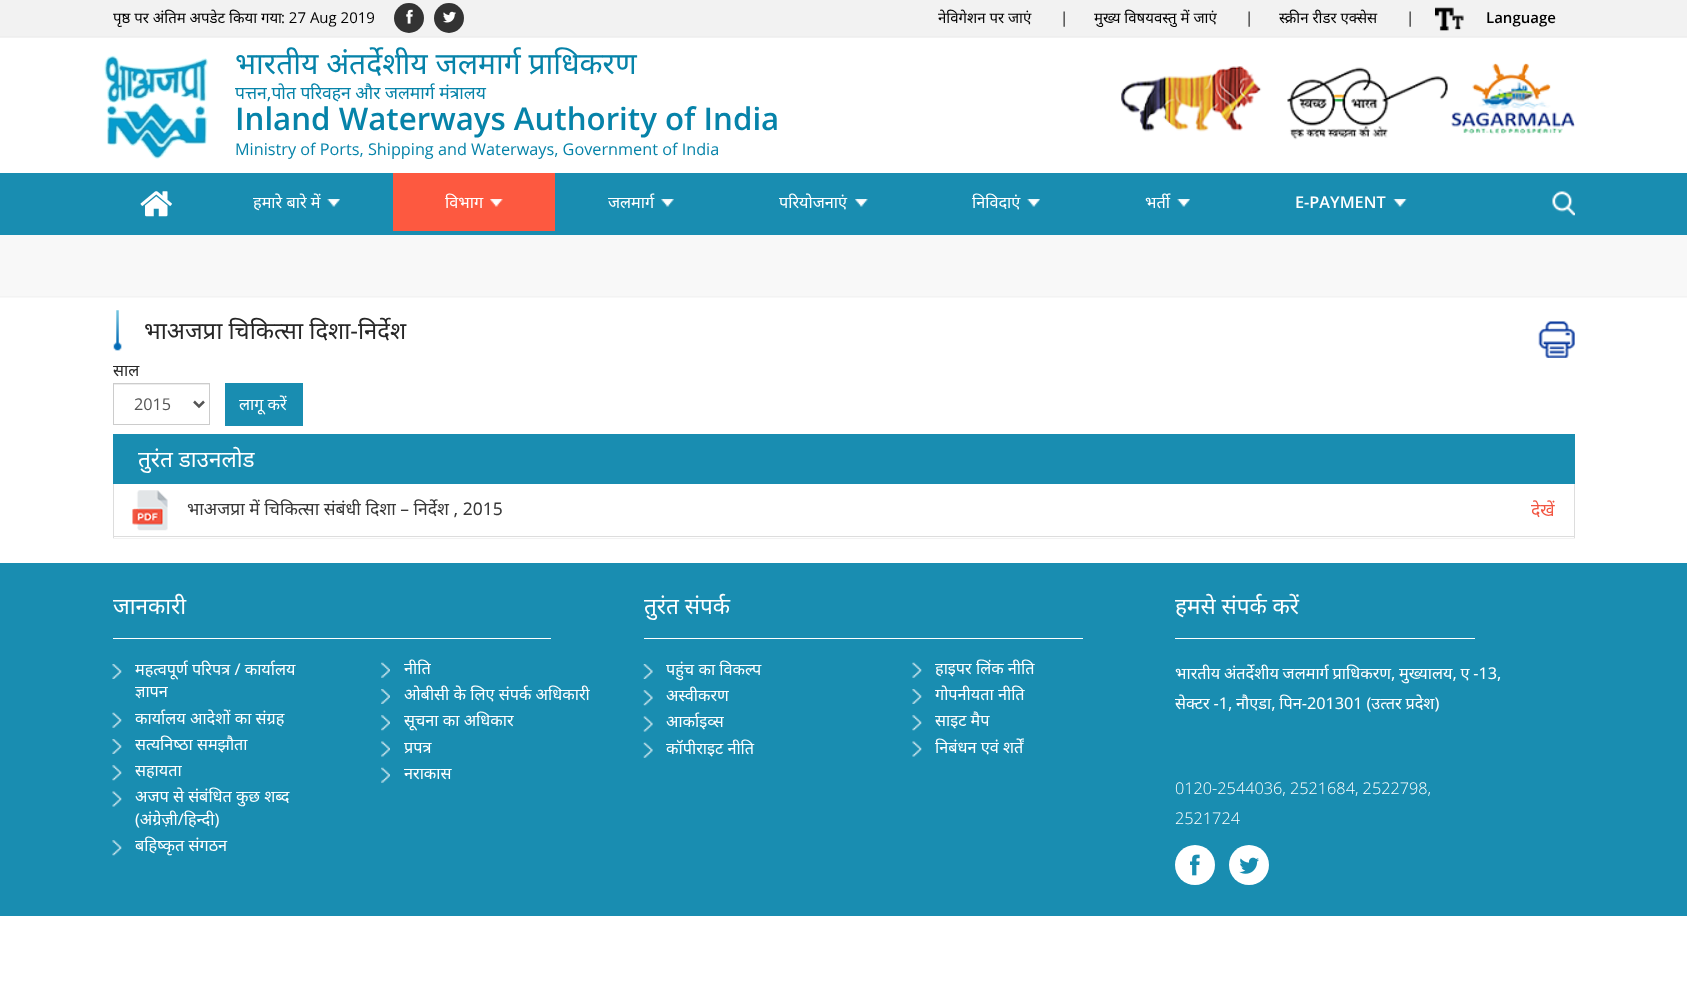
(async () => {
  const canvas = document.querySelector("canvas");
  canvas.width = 1687;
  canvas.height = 983;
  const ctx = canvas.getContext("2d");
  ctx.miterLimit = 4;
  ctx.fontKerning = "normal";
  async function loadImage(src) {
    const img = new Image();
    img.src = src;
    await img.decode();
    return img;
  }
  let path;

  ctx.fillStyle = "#ffffff";
  ctx.fillRect(0, 0, 1687, 983);
  ctx.fillStyle = "#f2f2f2";
  ctx.fillRect(0, 0, 1687, 38);
  ctx.fillStyle = "#eeeeee";
  ctx.fillRect(0, 36, 1687, 1);
  ctx.fillStyle = "#333333";
  ctx.beginPath();
  ctx.arc(409, 18, 15, 0, Math.PI * 2);
  ctx.fill();
  ctx.drawImage(await loadImage("img/1.png"), 406, 9, 7, 15);
  ctx.beginPath();
  ctx.arc(449, 18, 15, 0, Math.PI * 2);
  ctx.fill();
  ctx.drawImage(await loadImage("img/2.png"), 443, 11, 13, 12);
  ctx.drawImage(await loadImage("img/3.png"), 1435, 7, 29, 24);
  ctx.drawImage(await loadImage("img/4.png"), 104, 55, 104, 104);
  ctx.drawImage(await loadImage("img/5.png"), 1121, 66, 141, 66);
  ctx.drawImage(await loadImage("img/6.png"), 1287, 67, 161, 73);
  ctx.drawImage(await loadImage("img/7.png"), 1451, 63, 124, 72);
  ctx.fillStyle = "#198db1";
  ctx.fillRect(0, 173, 1687, 62);
  ctx.drawImage(await loadImage("img/8.png"), 140, 191, 32, 26);
  ctx.drawImage(await loadImage("img/9.png"), 327, 199, 13, 8);
  ctx.fillStyle = "#fd5940";
  ctx.fillRect(393, 173, 162, 58);
  ctx.drawImage(await loadImage("img/10.png"), 490, 199, 13, 8);
  ctx.drawImage(await loadImage("img/11.png"), 661, 199, 13, 8);
  ctx.drawImage(await loadImage("img/12.png"), 855, 199, 13, 8);
  ctx.drawImage(await loadImage("img/9.png"), 1027, 199, 13, 8);
  ctx.drawImage(await loadImage("img/9.png"), 1177, 199, 13, 8);
  ctx.drawImage(await loadImage("img/13.png"), 1393, 199, 14, 8);
  ctx.drawImage(await loadImage("img/14.png"), 1552, 191, 23, 25);
  ctx.fillStyle = "#f8f8f8";
  ctx.fillRect(0, 235, 1687, 63);
  ctx.fillStyle = "#f3f3f3";
  ctx.fillRect(0, 296, 1687, 1);
  ctx.drawImage(await loadImage("img/15.png"), 113, 310, 9, 41);
  ctx.drawImage(await loadImage("img/16.png"), 1538, 321, 37, 37);
  ctx.fillStyle = "#ececec";
  ctx.fillRect(114, 384, 95, 1);
  ctx.strokeStyle = "#cccccc";
  ctx.strokeRect(113.5, 383.5, 96, 41);
  path = new Path2D("M194 401.5L199 406.5L204 401.5");
  ctx.strokeStyle = "#555555";
  ctx.lineWidth = 2.5;
  ctx.stroke(path);
  ctx.fillStyle = "#198db1";
  ctx.fillRect(225, 383, 78, 43);
  ctx.fillRect(113, 434, 1462, 50);
  ctx.fillStyle = "rgba(0, 0, 0, 0.05)";
  ctx.filter = "blur(0.5px)";
  ctx.beginPath();
  ctx.rect(113, 485, 1462, 54);
  ctx.fill();
  ctx.filter = "none";
  for (const [x, y, w, h, color] of [
    [114, 485, 1460, 53, "#ffffff"],
    [1574, 484, 1, 54, "#dddddd"],
    [113, 484, 1, 54, "#dddddd"],
    [114, 536, 1460, 1, "#dddddd"],
  ]) {
    ctx.fillStyle = color;
    ctx.fillRect(x, y, w, h);
  }
  ctx.drawImage(await loadImage("img/17.png"), 132, 490, 36, 41);
  ctx.fillStyle = "#198db1";
  ctx.fillRect(0, 563, 1687, 353);
  ctx.fillStyle = "#ffffff";
  ctx.fillRect(113, 638, 438, 1);
  ctx.drawImage(await loadImage("img/18.png"), 112, 664, 10, 15);
  ctx.drawImage(await loadImage("img/19.png"), 112, 712, 10, 16);
  ctx.drawImage(await loadImage("img/18.png"), 112, 739, 10, 15);
  ctx.drawImage(await loadImage("img/20.png"), 112, 765, 10, 16);
  ctx.drawImage(await loadImage("img/21.png"), 112, 791, 10, 16);
  ctx.drawImage(await loadImage("img/20.png"), 112, 840, 10, 16);
  ctx.drawImage(await loadImage("img/22.png"), 381, 662, 9, 16);
  ctx.drawImage(await loadImage("img/23.png"), 381, 689, 9, 15);
  ctx.drawImage(await loadImage("img/24.png"), 381, 715, 9, 16);
  ctx.drawImage(await loadImage("img/25.png"), 381, 741, 9, 16);
  ctx.drawImage(await loadImage("img/22.png"), 381, 767, 9, 16);
  ctx.fillRect(644, 638, 439, 1);
  ctx.drawImage(await loadImage("img/26.png"), 643, 664, 10, 15);
  ctx.drawImage(await loadImage("img/27.png"), 643, 690, 10, 16);
  ctx.drawImage(await loadImage("img/28.png"), 643, 716, 10, 16);
  ctx.drawImage(await loadImage("img/29.png"), 643, 742, 10, 16);
  ctx.drawImage(await loadImage("img/19.png"), 912, 662, 10, 16);
  ctx.drawImage(await loadImage("img/18.png"), 912, 689, 10, 15);
  ctx.drawImage(await loadImage("img/20.png"), 912, 715, 10, 16);
  ctx.drawImage(await loadImage("img/21.png"), 912, 741, 10, 16);
  ctx.fillRect(1175, 638, 300, 1);
  ctx.beginPath();
  ctx.arc(1195, 865, 20, 0, Math.PI * 2);
  ctx.fill();
  ctx.drawImage(await loadImage("img/30.png"), 1190, 854, 10, 22);
  ctx.beginPath();
  ctx.arc(1249, 865, 20, 0, Math.PI * 2);
  ctx.fill();
  ctx.drawImage(await loadImage("img/31.png"), 1239, 857, 20, 17);
  ctx.font = "15px Noto Sans";
  ctx.fillStyle = "#000000";
  ctx.fillText("पृष्ठ पर अंतिम अपडेट किया गया", 113, 23);
  ctx.font = "15px Open Sans";
  ctx.fillText(": 27 Aug 2019", 281, 23);
  ctx.font = "15px Noto Sans";
  ctx.fillText("नेविगेशन पर जाएं", 938, 23);
  ctx.font = "15px Open Sans";
  ctx.fillText("|", 1060, 23);
  ctx.font = "15px Noto Sans";
  ctx.fillText("मुख्य विषयवस्तु में जाएं", 1094, 23);
  ctx.font = "15px Open Sans";
  ctx.fillText("|", 1245, 23);
  ctx.font = "15px Noto Sans";
  ctx.fillText("स्क्रीन रीडर एक्सेस", 1279, 23);
  ctx.font = "15px Open Sans";
  ctx.fillText("|", 1406, 23);
  ctx.font = "600 15px Open Sans";
  ctx.fillText("Language", 1486, 23);
  ctx.font = "30px Noto Sans";
  ctx.fillStyle = "#0683a9";
  ctx.fillText("भारतीय अंतर्देशीय जलमार्ग प्राधिकरण", 235, 74);
  ctx.font = "17.5px Noto Sans";
  ctx.fillText("पत्तन,पोत परिवहन और जलमार्ग मंत्रालय", 235, 99);
  ctx.font = "600 31.25px Open Sans";
  ctx.fillText("Inland Waterways Authority of India", 235, 130);
  ctx.font = "16.25px Open Sans";
  ctx.fillText("Ministry of Ports, Shipping and Waterways, Government of India", 235, 155);
  ctx.font = "16.25px Noto Sans";
  ctx.fillStyle = "#ffffff";
  for (const [text, x, y] of [
    ["हमारे बारे में", 253, 208],
    ["विभाग", 445, 208],
    ["जलमार्ग", 608, 208],
    ["परियोजनाएं", 779, 208],
    ["निविदाएं", 972, 208],
    ["भर्ती", 1145, 208],
  ]) {
    ctx.fillText(text, x, y);
  }
  ctx.font = "600 16.25px Open Sans";
  ctx.fillText("E-PAYMENT", 1295, 208);
  ctx.font = "23.75px Noto Sans";
  ctx.fillStyle = "#272727";
  ctx.fillText("भाअजप्रा चिकित्‍सा दिशा-निर्देश", 144, 339);
  ctx.font = "16.25px Noto Sans";
  ctx.fillText("साल", 113, 376);
  ctx.font = "16.25px Open Sans";
  ctx.fillStyle = "#555555";
  ctx.fillText("2015", 134, 410);
  ctx.font = "16.25px Noto Sans";
  ctx.fillStyle = "#ffffff";
  ctx.fillText("लागू करें", 239, 410);
  ctx.font = "22.5px Noto Sans";
  ctx.fillText("तुरंत डाउनलोड", 138, 467);
  ctx.font = "17.5px Noto Sans";
  ctx.fillStyle = "#373737";
  ctx.fillText("भाअजप्रा में चिकित्‍सा संबंधी दिशा – निर्देश , 2015", 187, 515);
  ctx.fillStyle = "#f15642";
  ctx.fillText("देखें", 1531, 516);
  ctx.font = "22.5px Noto Sans";
  ctx.fillStyle = "#ffffff";
  ctx.fillText("जानकारी", 113, 614);
  ctx.font = "16.25px Noto Sans";
  for (const [text, x, y] of [
    ["महत्वपूर्ण परिपत्र / कार्यालय", 135, 675],
    ["ज्ञापन", 135, 697],
    ["कार्यालय आदेशों का संग्रह", 135, 724],
    ["सत्‍यनिष्‍ठा समझौता", 135, 750],
    ["सहायता", 135, 776],
    ["अजप से संबंधित कुछ शब्द", 135, 802],
    ["(अंग्रेज़ी/हिन्‍दी)", 135, 825],
    ["बहिष्‍कृत संगठन", 135, 851],
    ["नीति", 404, 674],
    ["ओबीसी के लिए संपर्क अधिकारी", 404, 700],
    ["सूचना का अधिकार", 404, 726],
    ["प्रपत्र", 404, 753],
    ["नराकास", 404, 779],
  ]) {
    ctx.fillText(text, x, y);
  }
  ctx.font = "22.5px Noto Sans";
  ctx.fillText("तुरंत संपर्क", 644, 614);
  ctx.font = "16.25px Noto Sans";
  for (const [text, x, y] of [
    ["पहुंच का विकल्प", 666, 675],
    ["अस्वीकरण", 666, 701],
    ["आर्काइव्स", 666, 727],
    ["कॉपीराइट नीति", 666, 754],
    ["हाइपर लिंक नीति", 935, 674],
    ["गोपनीयता नीति", 935, 700],
    ["साइट मैप", 935, 726],
    ["निबंधन एवं शर्तें", 935, 753],
  ]) {
    ctx.fillText(text, x, y);
  }
  ctx.font = "22.5px Noto Sans";
  ctx.fillText("हमसे संपर्क करें", 1175, 614);
  ctx.wordSpacing = "-0.5px";
  ctx.font = "16.25px Noto Sans";
  ctx.fillText("भारतीय अंतर्देशीय जलमार्ग प्राधिकरण, मुख्‍यालय, ए -13,", 1175, 679);
  ctx.fillText("सेक्टर -1, नौएडा, पिन-201301 (उत्‍तर प्रदेश)", 1175, 709);
  ctx.wordSpacing = "0px";
  ctx.font = "300 16.25px Open Sans";
  ctx.fillText("0120-2544036, 2521684, 2522798,", 1175, 794);
  ctx.fillText("2521724", 1175, 824);
})();
